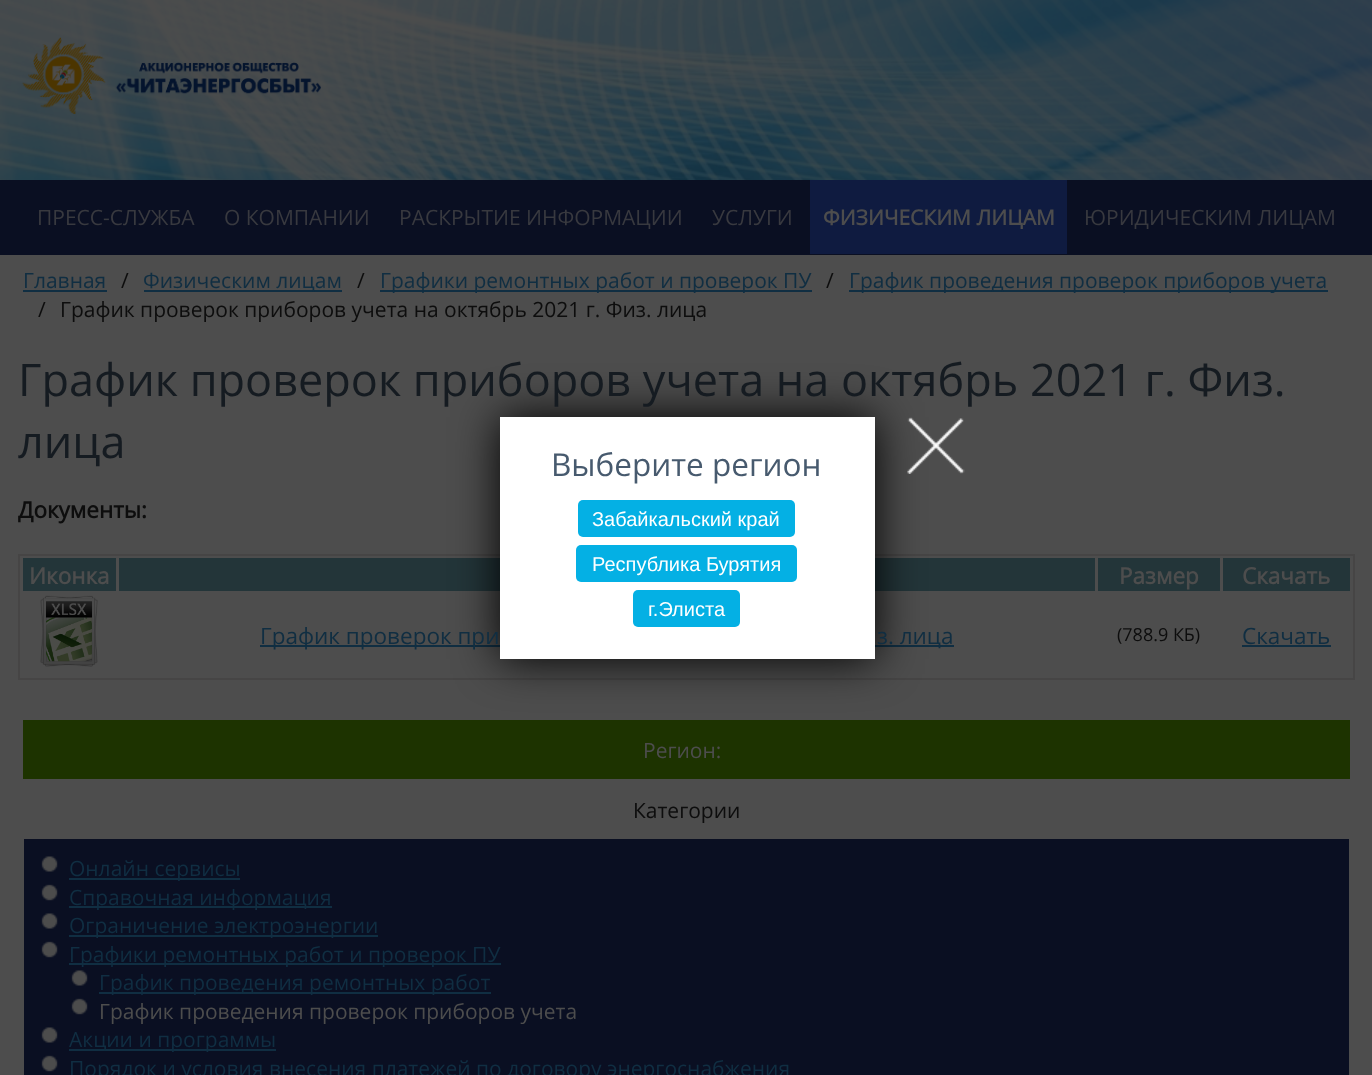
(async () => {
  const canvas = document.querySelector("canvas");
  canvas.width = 1372;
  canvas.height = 1075;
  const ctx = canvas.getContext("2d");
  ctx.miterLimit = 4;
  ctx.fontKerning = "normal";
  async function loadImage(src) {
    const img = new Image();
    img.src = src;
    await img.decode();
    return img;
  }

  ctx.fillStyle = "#ffffff";
  ctx.fillRect(0, 0, 1372, 1075);
  ctx.drawImage(await loadImage("img/1.png"), 0, 0, 1372, 180);
  ctx.drawImage(await loadImage("img/2.png"), 22, 37, 299, 77);
  for (const [x, y, w, h, color] of [
    [0, 180, 1372, 75, "#0a0f22"],
    [810, 180, 257, 74, "#0f1b40"],
    [0, 255, 1372, 820, "#4d4d4d"],
    [23, 290, 84, 2, "#102e42"],
    [144, 290, 198, 2, "#102e42"],
    [380, 290, 432, 2, "#102e42"],
    [849, 290, 479, 2, "#102e42"],
  ]) {
    ctx.fillStyle = color;
    ctx.fillRect(x, y, w, h);
  }
  ctx.strokeStyle = "#464545";
  ctx.lineWidth = 2;
  ctx.strokeRect(19, 555, 1335, 124);
  for (const [x, y, w, h, color] of [
    [23, 558, 93, 33, "#233539"],
    [119, 558, 976, 33, "#233539"],
    [1098, 558, 122, 33, "#233539"],
    [1223, 558, 127, 33, "#233539"],
  ]) {
    ctx.fillStyle = color;
    ctx.fillRect(x, y, w, h);
  }
  ctx.drawImage(await loadImage("img/3.png"), 40, 595, 58, 72);
  for (const [x, y, w, h, color] of [
    [260, 645, 694, 2, "#102e42"],
    [1242, 645, 89, 2, "#102e42"],
    [23, 720, 1327, 59, "#1d3300"],
    [24, 839, 1325, 236, "#0a0f22"],
  ]) {
    ctx.fillStyle = color;
    ctx.fillRect(x, y, w, h);
  }
  ctx.drawImage(await loadImage("img/4.png"), 41, 856, 17, 16);
  ctx.fillStyle = "#102e42";
  ctx.fillRect(69, 878, 171, 2);
  ctx.drawImage(await loadImage("img/5.png"), 41, 884, 17, 17);
  ctx.fillRect(69, 906, 263, 2);
  ctx.drawImage(await loadImage("img/4.png"), 41, 913, 17, 16);
  ctx.fillRect(69, 935, 309, 2);
  ctx.drawImage(await loadImage("img/5.png"), 41, 941, 17, 17);
  ctx.fillRect(69, 963, 432, 2);
  ctx.drawImage(await loadImage("img/4.png"), 71, 970, 17, 16);
  ctx.fillRect(99, 992, 392, 2);
  ctx.drawImage(await loadImage("img/5.png"), 71, 998, 17, 17);
  ctx.drawImage(await loadImage("img/4.png"), 41, 1027, 17, 16);
  ctx.fillRect(69, 1049, 207, 2);
  ctx.drawImage(await loadImage("img/5.png"), 41, 1055, 17, 17);
  ctx.fillStyle = "#000000";
  ctx.filter = "blur(22.5px)";
  ctx.beginPath();
  ctx.rect(500, 417, 375, 242);
  ctx.fill();
  ctx.filter = "none";
  ctx.fillStyle = "#ffffff";
  ctx.fillRect(500, 417, 375, 242);
  ctx.fillStyle = "#04b0e4";
  ctx.beginPath();
  ctx.roundRect(578, 500, 217, 37, 5);
  ctx.fill();
  ctx.beginPath();
  ctx.roundRect(576, 545, 221, 37, 5);
  ctx.fill();
  ctx.beginPath();
  ctx.roundRect(633, 590, 107, 37, 5);
  ctx.fill();
  ctx.drawImage(await loadImage("img/6.png"), 907, 417, 58, 57);
  ctx.font = "21px Open Sans";
  ctx.fillStyle = "#38393f";
  for (const [text, x, y] of [
    ["ПРЕСС-СЛУЖБА", 37, 225],
    ["О КОМПАНИИ", 224, 225],
    ["РАСКРЫТИЕ ИНФОРМАЦИИ", 399, 225],
    ["УСЛУГИ", 712, 225],
  ]) {
    ctx.fillText(text, x, y);
  }
  ctx.font = "bold 21px Open Sans";
  ctx.fillStyle = "#4d4d4d";
  ctx.fillText("ФИЗИЧЕСКИМ ЛИЦАМ", 823, 225);
  ctx.font = "21px Open Sans";
  ctx.fillStyle = "#38393f";
  ctx.fillText("ЮРИДИЧЕСКИМ ЛИЦАМ", 1084, 225);
  ctx.fillStyle = "#102e42";
  ctx.fillText("Главная", 23, 288);
  ctx.fillStyle = "#0d0d0d";
  ctx.fillText("/", 121, 288);
  ctx.fillStyle = "#102e42";
  ctx.fillText("Физическим лицам", 143, 288);
  ctx.fillStyle = "#0d0d0d";
  ctx.fillText("/", 357, 288);
  ctx.fillStyle = "#102e42";
  ctx.fillText("Графики ремонтных работ и проверок ПУ", 380, 288);
  ctx.fillStyle = "#0d0d0d";
  ctx.fillText("/", 826, 288);
  ctx.fillStyle = "#102e42";
  ctx.fillText("График проведения проверок приборов учета", 849, 288);
  ctx.fillStyle = "#0d0d0d";
  ctx.fillText("/", 38, 317);
  ctx.fillText("График проверок приборов учета на октябрь 2021 г. Физ. лица", 60, 317);
  ctx.font = "45px Open Sans";
  ctx.fillStyle = "#151b21";
  ctx.fillText("График проверок приборов учета на октябрь 2021 г. Физ.", 18, 396);
  ctx.fillText("лица", 18, 458);
  ctx.font = "bold 22.5px Open Sans";
  ctx.fillStyle = "#0d0d0d";
  ctx.fillText("Документы:", 18, 518);
  ctx.fillStyle = "#4d4d4d";
  for (const [text, x, y] of [
    ["Иконка", 29, 584],
    ["Размер", 1119, 584],
    ["Скачать", 1242, 584],
  ]) {
    ctx.fillText(text, x, y);
  }
  ctx.font = "22.5px Open Sans";
  ctx.fillStyle = "#102e42";
  ctx.fillText("График проверок при", 260, 644);
  ctx.fillText("з. лица", 877, 644);
  ctx.font = "18px Open Sans";
  ctx.fillStyle = "#0d0d0d";
  ctx.fillText("(788.9 КБ)", 1117, 641);
  ctx.font = "22.5px Open Sans";
  ctx.fillStyle = "#102e42";
  ctx.fillText("Скачать", 1242, 644);
  ctx.font = "21px Open Sans";
  ctx.fillStyle = "#4d4d4d";
  ctx.fillText("Регион:", 643, 758);
  ctx.fillStyle = "#0d0d0d";
  ctx.fillText("Категории", 633, 818);
  ctx.fillStyle = "#102e42";
  for (const [text, x, y] of [
    ["Онлайн сервисы", 69, 876],
    ["Справочная информация", 69, 905],
    ["Ограничение электроэнергии", 69, 933],
    ["Графики ремонтных работ и проверок ПУ", 69, 962],
    ["График проведения ремонтных работ", 99, 990],
  ]) {
    ctx.fillText(text, x, y);
  }
  ctx.fillStyle = "#4d4d4d";
  ctx.fillText("График проведения проверок приборов учета", 99, 1019);
  ctx.fillStyle = "#102e42";
  ctx.fillText("Акции и программы", 69, 1047);
  ctx.fillText("Порядок и условия внесения платежей по договору энергоснабжения", 69, 1076);
  ctx.font = "31.5px Open Sans";
  ctx.fillStyle = "#475a6e";
  ctx.fillText("Выберите регион", 551, 476);
  ctx.font = "20px Liberation Sans";
  ctx.fillStyle = "#ffffff";
  for (const [text, x, y] of [
    ["Забайкальский край", 592, 526],
    ["Республика Бурятия", 592, 571],
    ["г.Элиста", 648, 616],
  ]) {
    ctx.fillText(text, x, y);
  }
})();
